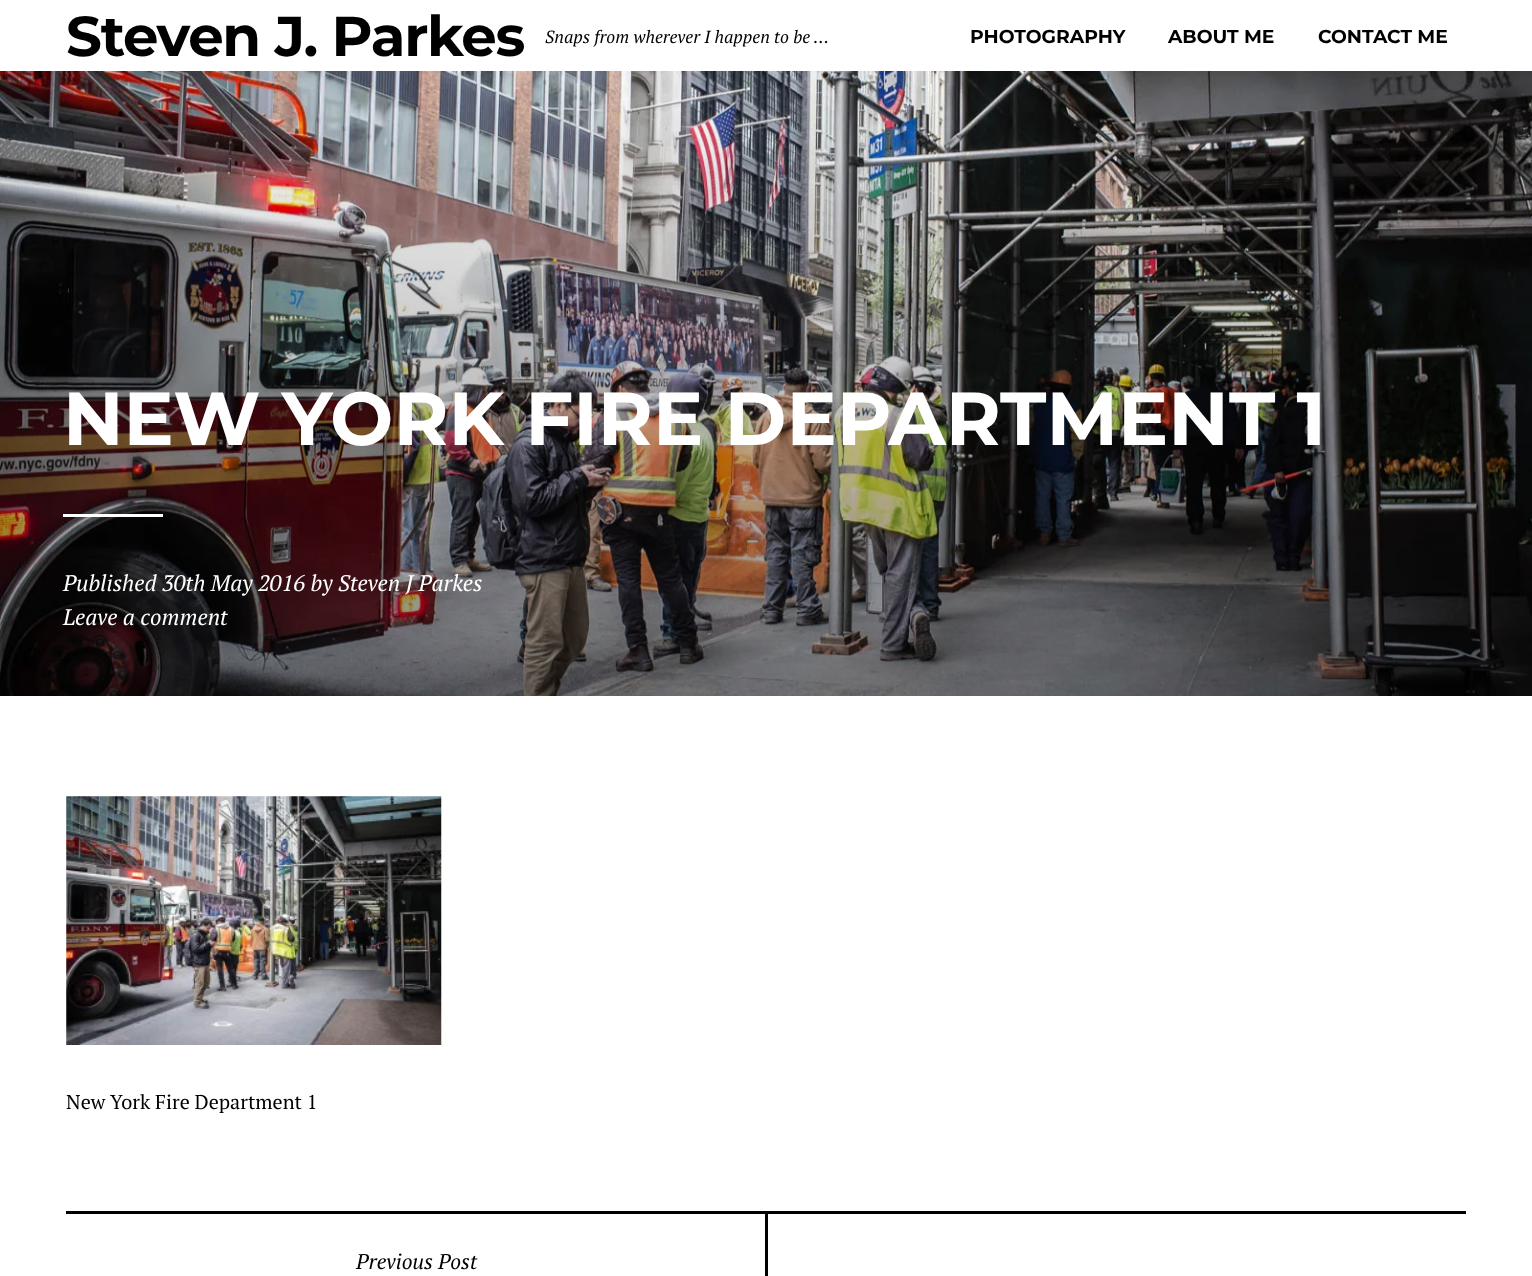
(async () => {
  const canvas = document.querySelector("canvas");
  canvas.width = 1532;
  canvas.height = 1276;
  const ctx = canvas.getContext("2d");
  ctx.miterLimit = 4;
  ctx.fontKerning = "normal";
  async function loadImage(src) {
    const img = new Image();
    img.src = src;
    await img.decode();
    return img;
  }

  ctx.fillStyle = "#ffffff";
  ctx.fillRect(0, 0, 1532, 1276);
  ctx.drawImage(await loadImage("img/1.png"), 0, 71, 1532, 625);
  ctx.fillRect(63, 514, 100, 3);
  ctx.drawImage(await loadImage("img/2.png"), 66, 796, 376, 249);
  ctx.fillStyle = "#000000";
  ctx.fillRect(66, 1211, 1400, 3);
  ctx.fillRect(765, 1214, 3, 62);
  ctx.letterSpacing = "-1.25px";
  ctx.font = "bold 56.25px Montserrat";
  ctx.fillText("Steven J. Parkes", 66, 56);
  ctx.letterSpacing = "0px";
  ctx.font = "italic 17.5px PT Serif";
  ctx.fillText("Snaps from wherever I happen to be …", 545, 43);
  ctx.font = "bold 18.75px Montserrat";
  for (const [text, x, y] of [
    ["PHOTOGRAPHY", 970, 43],
    ["ABOUT ME", 1168, 43],
    ["CONTACT ME", 1318, 43],
  ]) {
    ctx.fillText(text, x, y);
  }
  ctx.font = "bold 75px Montserrat";
  ctx.fillStyle = "#ffffff";
  ctx.fillText("NEW YORK FIRE DEPARTMENT 1", 63, 445);
  ctx.font = "italic 22.5px PT Serif";
  ctx.fillText("Published 30th May 2016 by Steven J Parkes", 63, 591);
  ctx.fillText("Leave a comment", 63, 625);
  ctx.font = "20px PT Serif";
  ctx.fillStyle = "#000000";
  ctx.fillText("New York Fire Department 1", 66, 1109);
  ctx.font = "italic 21.25px PT Serif";
  ctx.fillText("Previous Post", 356, 1269);
})();
